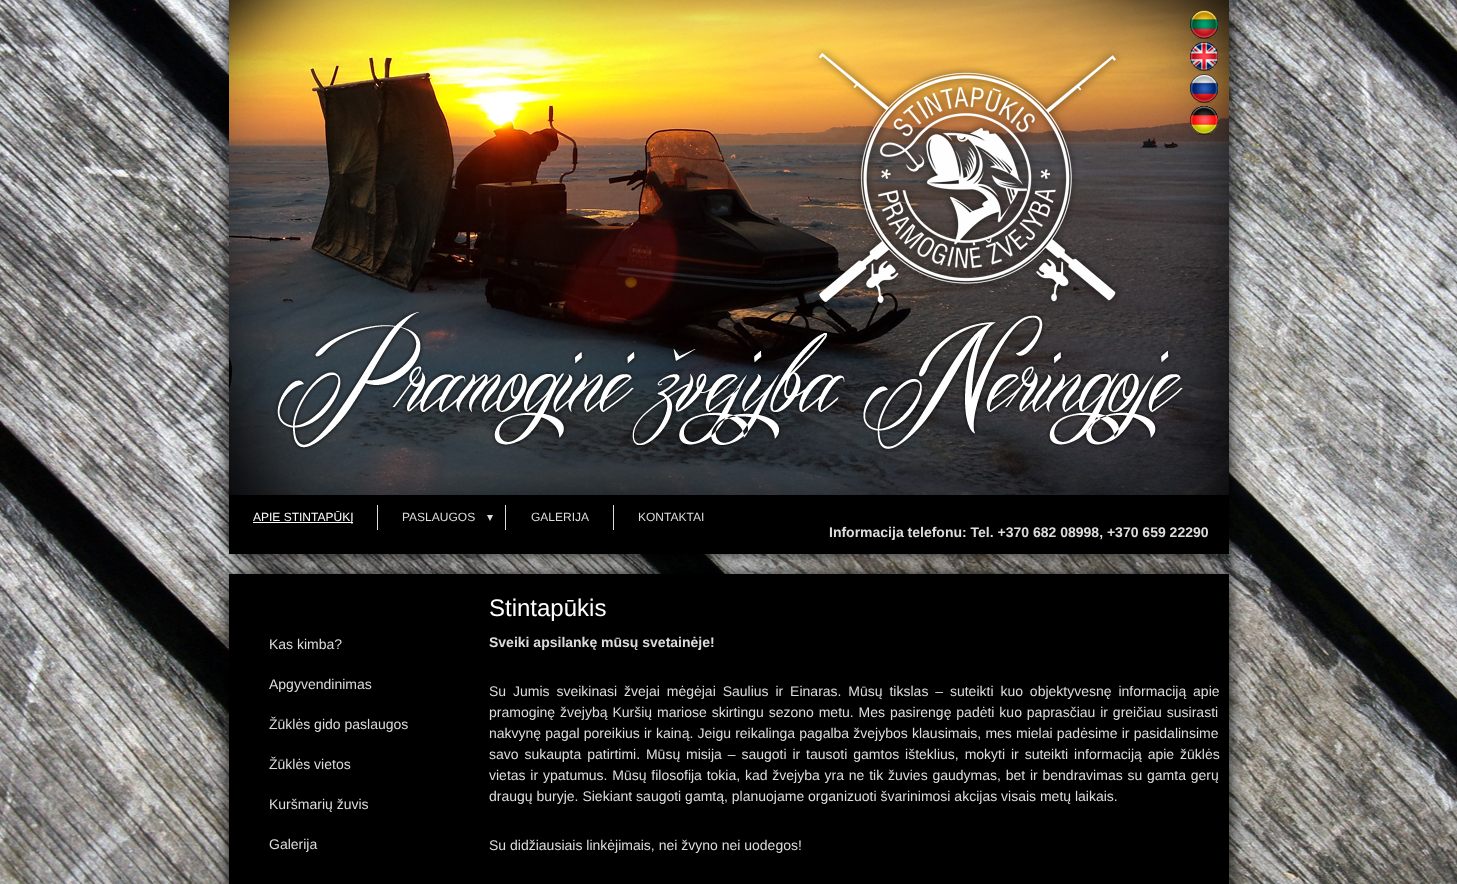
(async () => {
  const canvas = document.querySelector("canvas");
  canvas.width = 1457;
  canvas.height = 884;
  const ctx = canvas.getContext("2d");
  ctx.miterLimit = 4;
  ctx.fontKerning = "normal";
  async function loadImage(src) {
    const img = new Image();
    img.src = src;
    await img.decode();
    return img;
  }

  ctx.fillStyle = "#ffffff";
  ctx.fillRect(0, 0, 1457, 884);
  ctx.drawImage(await loadImage("img/1.png"), 0, 0, 1457, 884);
  ctx.fillStyle = "#000000";
  ctx.filter = "blur(10px)";
  ctx.beginPath();
  ctx.rect(229, 574, 1000, 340);
  ctx.fill();
  ctx.filter = "none";
  ctx.fillRect(229, 574, 1000, 310);
  ctx.filter = "blur(10px)";
  ctx.beginPath();
  ctx.rect(229, 0, 1000, 554);
  ctx.fill();
  ctx.filter = "none";
  ctx.fillRect(229, 495, 1000, 59);
  ctx.drawImage(await loadImage("img/2.png"), 229, 0, 1000, 495);
  ctx.drawImage(await loadImage("img/3.png"), 1190, 10, 28, 29);
  ctx.drawImage(await loadImage("img/4.png"), 1190, 42, 28, 29);
  ctx.drawImage(await loadImage("img/5.png"), 1190, 74, 28, 29);
  ctx.drawImage(await loadImage("img/6.png"), 1190, 106, 28, 29);
  for (const [x, y, w, h, color] of [
    [377, 505, 1, 25, "#dddddd"],
    [253, 522, 100, 1, "#ffffff"],
    [505, 505, 1, 25, "#dddddd"],
    [613, 505, 1, 25, "#dddddd"],
  ]) {
    ctx.fillStyle = color;
    ctx.fillRect(x, y, w, h);
  }
  ctx.font = "12px Liberation Sans";
  ctx.fillStyle = "#ffffff";
  ctx.fillText("APIE STINTAPŪKĮ", 253, 521);
  ctx.fillStyle = "#dddddd";
  ctx.fillText("PASLAUGOS", 402, 521);
  ctx.font = "12px DejaVu Sans";
  ctx.fillText("▾", 487, 521);
  ctx.font = "12px Liberation Sans";
  ctx.fillText("GALERIJA", 531, 521);
  ctx.fillText("KONTAKTAI", 638, 521);
  ctx.font = "bold 14px Liberation Sans";
  ctx.fillText("Informacija telefonu: Tel. +370 682 08998, +370 659 22290", 829, 537);
  ctx.font = "14px Liberation Sans";
  for (const [text, x, y] of [
    ["Kas kimba?", 269, 649],
    ["Apgyvendinimas", 269, 689],
    ["Žūklės gido paslaugos", 269, 729],
    ["Žūklės vietos", 269, 769],
    ["Kuršmarių žuvis", 269, 809],
    ["Galerija", 269, 849],
  ]) {
    ctx.fillText(text, x, y);
  }
  ctx.font = "24px Liberation Sans";
  ctx.fillStyle = "#ffffff";
  ctx.fillText("Stintapūkis", 489, 616);
  ctx.font = "bold 14px Liberation Sans";
  ctx.fillStyle = "#dddddd";
  ctx.fillText("Sveiki apsilankę mūsų svetainėje!", 489, 647);
  ctx.wordSpacing = "3px";
  ctx.font = "14px Liberation Sans";
  ctx.fillText("Su Jumis sveikinasi žvejai mėgėjai Saulius ir Einaras. Mūsų tikslas – suteikti kuo objektyvesnę informaciją apie", 489, 696);
  ctx.wordSpacing = "1px";
  ctx.fillText("pramoginę žvejybą Kuršių mariose skirtingu sezono metu. Mes pasirengę padėti kuo paprasčiau ir greičiau susirasti", 489, 717);
  ctx.wordSpacing = "0.3px";
  ctx.fillText("nakvynę pagal poreikius ir kainą. Jeigu reikalinga pagalba žvejybos klausimais, mes mielai padėsime ir pasidalinsime", 489, 738);
  ctx.wordSpacing = "2px";
  ctx.fillText("savo sukaupta patirtimi. Mūsų misija – saugoti ir tausoti gamtos išteklius, mokyti ir suteikti informaciją apie žūklės", 489, 759);
  ctx.wordSpacing = "0.9px";
  ctx.fillText("vietas ir ypatumus. Mūsų filosofija tokia, kad žvejyba yra ne tik žuvies gaudymas, bet ir bendravimas su gamta gerų", 489, 780);
  ctx.wordSpacing = "0px";
  ctx.fillText("draugų buryje. Siekiant saugoti gamtą, planuojame organizuoti švarinimosi akcijas visais metų laikais.", 489, 801);
  ctx.fillText("Su didžiausiais linkėjimais, nei žvyno nei uodegos!", 489, 850);
})();
